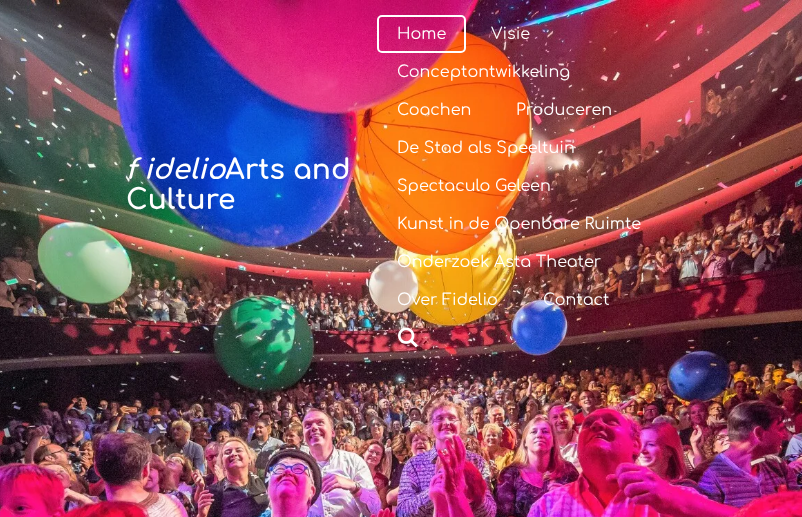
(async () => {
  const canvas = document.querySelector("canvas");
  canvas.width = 802;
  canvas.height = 517;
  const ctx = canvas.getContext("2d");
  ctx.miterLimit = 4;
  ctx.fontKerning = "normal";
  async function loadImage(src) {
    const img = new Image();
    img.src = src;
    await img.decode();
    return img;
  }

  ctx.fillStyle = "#ffffff";
  ctx.fillRect(0, 0, 802, 517);
  ctx.drawImage(await loadImage("img/1.png"), 0, 0, 802, 517);
  ctx.beginPath();
  ctx.roundRect(378, 16, 87, 36, 4);
  ctx.strokeStyle = "#ffffff";
  ctx.lineWidth = 2;
  ctx.stroke();
  ctx.drawImage(await loadImage("img/2.png"), 398, 327, 20, 21);
  ctx.font = "italic bold 28px Comfortaa";
  ctx.fillText("f", 126, 179);
  ctx.fillText("idelio", 144, 179);
  ctx.font = "bold 28px Comfortaa";
  ctx.fillText("Arts and", 225, 179);
  ctx.fillText("Culture", 126, 209);
  ctx.font = "16px Comfortaa";
  for (const [text, x, y] of [
    ["Home", 397, 39],
    ["Visie", 491, 39],
    ["Conceptontwikkeling", 397, 77],
    ["Coachen", 397, 115],
    ["Produceren", 516, 115],
    ["De Stad als Speeltuin", 397, 153],
    ["Spectaculo Geleen", 397, 191],
    ["Kunst in de Openbare Ruimte", 397, 229],
    ["Onderzoek Asta Theater", 397, 267],
    ["Over Fidelio", 397, 305],
    ["Contact", 543, 305],
  ]) {
    ctx.fillText(text, x, y);
  }
})();
